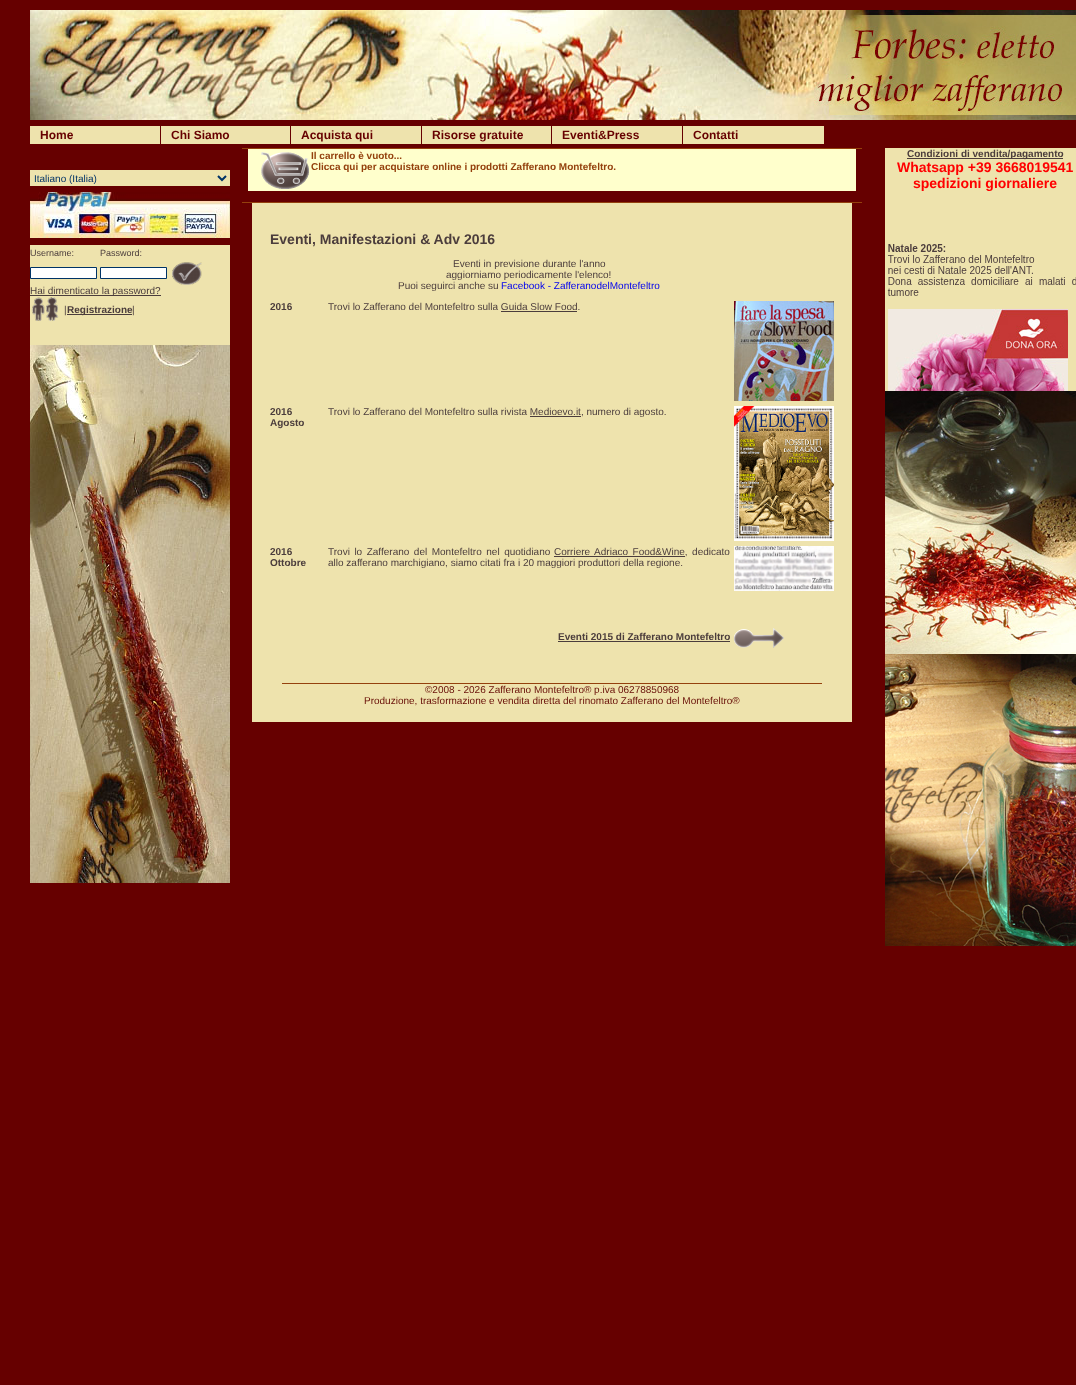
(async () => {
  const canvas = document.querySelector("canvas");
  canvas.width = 1076;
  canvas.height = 1385;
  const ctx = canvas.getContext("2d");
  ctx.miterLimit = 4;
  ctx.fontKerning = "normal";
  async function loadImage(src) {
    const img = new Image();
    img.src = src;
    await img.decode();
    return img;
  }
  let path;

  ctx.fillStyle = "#660000";
  ctx.fillRect(0, 0, 1076, 1385);
  ctx.drawImage(await loadImage("img/1.png"), 30, 10, 1046, 110);
  for (const [x, y, w, h, color] of [
    [30, 126, 130, 18, "#eee3ad"],
    [161, 126, 129, 18, "#eee3ad"],
    [291, 126, 130, 18, "#eee3ad"],
    [422, 126, 129, 18, "#eee3ad"],
    [552, 126, 130, 18, "#eee3ad"],
    [683, 126, 141, 18, "#eee3ad"],
    [30, 170, 200, 16, "#eee3ad"],
  ]) {
    ctx.fillStyle = color;
    ctx.fillRect(x, y, w, h);
  }
  path = new Path2D("M218 176L222 180L226 176");
  ctx.strokeStyle = "#003366";
  ctx.lineWidth = 2;
  ctx.stroke(path);
  ctx.fillStyle = "#94410d";
  ctx.fillRect(242, 148, 620, 1);
  ctx.fillStyle = "#ffffcc";
  ctx.fillRect(248, 149, 608, 42);
  ctx.drawImage(await loadImage("img/2.png"), 261, 152, 48, 37);
  for (const [x, y, w, h, color] of [
    [242, 202, 620, 1, "#94410d"],
    [252, 203, 600, 519, "#eee3ad"],
    [501, 311, 76, 1, "#4b3d3c"],
  ]) {
    ctx.fillStyle = color;
    ctx.fillRect(x, y, w, h);
  }
  ctx.drawImage(await loadImage("img/3.png"), 734, 301, 100, 100);
  ctx.fillRect(530, 416, 51, 1);
  ctx.drawImage(await loadImage("img/4.png"), 734, 406, 100, 135);
  ctx.fillRect(554, 556, 131, 1);
  ctx.drawImage(await loadImage("img/5.png"), 734, 546, 100, 45);
  ctx.fillRect(558, 641, 172, 1);
  ctx.drawImage(await loadImage("img/6.png"), 734, 628, 50, 20);
  for (const [x, y, w, h, color] of [
    [282, 683, 540, 1, "#94410d"],
    [885, 148, 191, 96, "#eee3ad"],
    [907, 158, 156, 1, "#4b3d3c"],
  ]) {
    ctx.fillStyle = color;
    ctx.fillRect(x, y, w, h);
  }
  ctx.drawImage(await loadImage("img/7.png"), 885, 244, 191, 147);
  ctx.drawImage(await loadImage("img/8.png"), 30, 192, 200, 46);
  ctx.fillStyle = "#eee3ad";
  ctx.fillRect(30, 245, 200, 100);
  ctx.fillStyle = "#ffffff";
  ctx.beginPath();
  ctx.rect(30.5, 267.5, 66, 11);
  ctx.fill();
  ctx.lineWidth = 1;
  ctx.stroke();
  ctx.beginPath();
  ctx.rect(100.5, 267.5, 66, 11);
  ctx.fill();
  ctx.stroke();
  ctx.drawImage(await loadImage("img/9.png"), 172, 262, 30, 23);
  ctx.fillStyle = "#4b3d3c";
  ctx.fillRect(30, 295, 131, 1);
  ctx.drawImage(await loadImage("img/10.png"), 31, 297, 28, 24);
  ctx.fillRect(67, 314, 65, 1);
  ctx.drawImage(await loadImage("img/11.png"), 30, 345, 200, 538);
  ctx.drawImage(await loadImage("img/12.png"), 885, 391, 191, 263);
  ctx.drawImage(await loadImage("img/13.png"), 885, 654, 191, 292);
  ctx.font = "bold 12px Liberation Sans";
  ctx.fillStyle = "#660000";
  for (const [text, x, y] of [
    ["Home", 40, 139],
    ["Chi Siamo", 171, 139],
    ["Acquista qui", 301, 139],
    ["Risorse gratuite", 432, 139],
    ["Eventi&Press", 562, 139],
    ["Contatti", 693, 139],
  ]) {
    ctx.fillText(text, x, y);
  }
  ctx.font = "10px Liberation Sans";
  ctx.fillStyle = "#003366";
  ctx.fillText("Italiano (Italia)", 34, 182);
  ctx.font = "bold 10px Liberation Sans";
  ctx.fillStyle = "#94410d";
  ctx.fillText("Il carrello è vuoto...", 311, 159);
  ctx.fillText("Clicca qui per acquistare online i prodotti Zafferano Montefeltro.", 311, 170);
  ctx.font = "bold 14px Liberation Sans";
  ctx.fillStyle = "#4b3d3c";
  ctx.fillText("Eventi, Manifestazioni & Adv 2016", 270, 244);
  ctx.font = "10px Liberation Sans";
  for (const [text, x, y] of [
    ["Eventi in previsione durante l'anno", 453, 267],
    ["aggiorniamo periodicamente l'elenco!", 446, 278],
    ["Puoi seguirci anche su", 398, 289],
  ]) {
    ctx.fillText(text, x, y);
  }
  ctx.fillStyle = "#0000ee";
  ctx.fillText("Facebook - ZafferanodelMontefeltro", 501, 289);
  ctx.font = "bold 10px Liberation Sans";
  ctx.fillStyle = "#4b3d3c";
  ctx.fillText("2016", 270, 310);
  ctx.font = "10px Liberation Sans";
  ctx.fillText("Trovi lo Zafferano del Montefeltro sulla Guida Slow Food.", 328, 310);
  ctx.font = "bold 10px Liberation Sans";
  ctx.fillText("2016", 270, 415);
  ctx.fillText("Agosto", 270, 426);
  ctx.font = "10px Liberation Sans";
  ctx.fillText("Trovi lo Zafferano del Montefeltro sulla rivista Medioevo.it, numero di agosto.", 328, 415);
  ctx.font = "bold 10px Liberation Sans";
  ctx.fillText("2016", 270, 555);
  ctx.fillText("Ottobre", 270, 566);
  ctx.wordSpacing = "1.75px";
  ctx.font = "10px Liberation Sans";
  ctx.fillText("Trovi lo Zafferano del Montefeltro nel quotidiano", 328, 555);
  ctx.fillText("Corriere Adriaco Food&Wine, dedicato", 554, 555);
  ctx.wordSpacing = "0px";
  ctx.fillText("allo zafferano marchigiano, siamo citati fra i 20 maggiori produttori della regione.", 328, 566);
  ctx.font = "bold 10px Liberation Sans";
  ctx.fillText("Eventi 2015 di Zafferano Montefeltro", 558, 640);
  ctx.font = "10px Liberation Sans";
  ctx.fillStyle = "#680f07";
  ctx.fillText("©2008 - 2026 Zafferano Montefeltro® p.iva 06278850968", 425, 693);
  ctx.fillText("Produzione, trasformazione e vendita diretta del rinomato Zafferano del Montefeltro®", 364, 704);
  ctx.font = "bold 10px Liberation Sans";
  ctx.fillStyle = "#4b3d3c";
  ctx.fillText("Condizioni di vendita/pagamento", 907, 157);
  ctx.font = "bold 14px Liberation Sans";
  ctx.fillStyle = "#ff0000";
  ctx.fillText("Whatsapp +39 3668019541", 897, 172);
  ctx.fillText("spedizioni giornaliere", 913, 188);
  ctx.font = "9px Liberation Sans";
  ctx.fillStyle = "#4b3d3c";
  ctx.fillText("Username:", 30, 256);
  ctx.fillText("Password:", 100, 256);
  ctx.font = "10px Liberation Sans";
  ctx.fillText("Hai dimenticato la password?", 30, 294);
  ctx.fillText("|", 64, 313);
  ctx.font = "bold 10px Liberation Sans";
  ctx.fillText("Registrazione", 67, 313);
  ctx.font = "10px Liberation Sans";
  ctx.fillText("|", 132, 313);
})();
